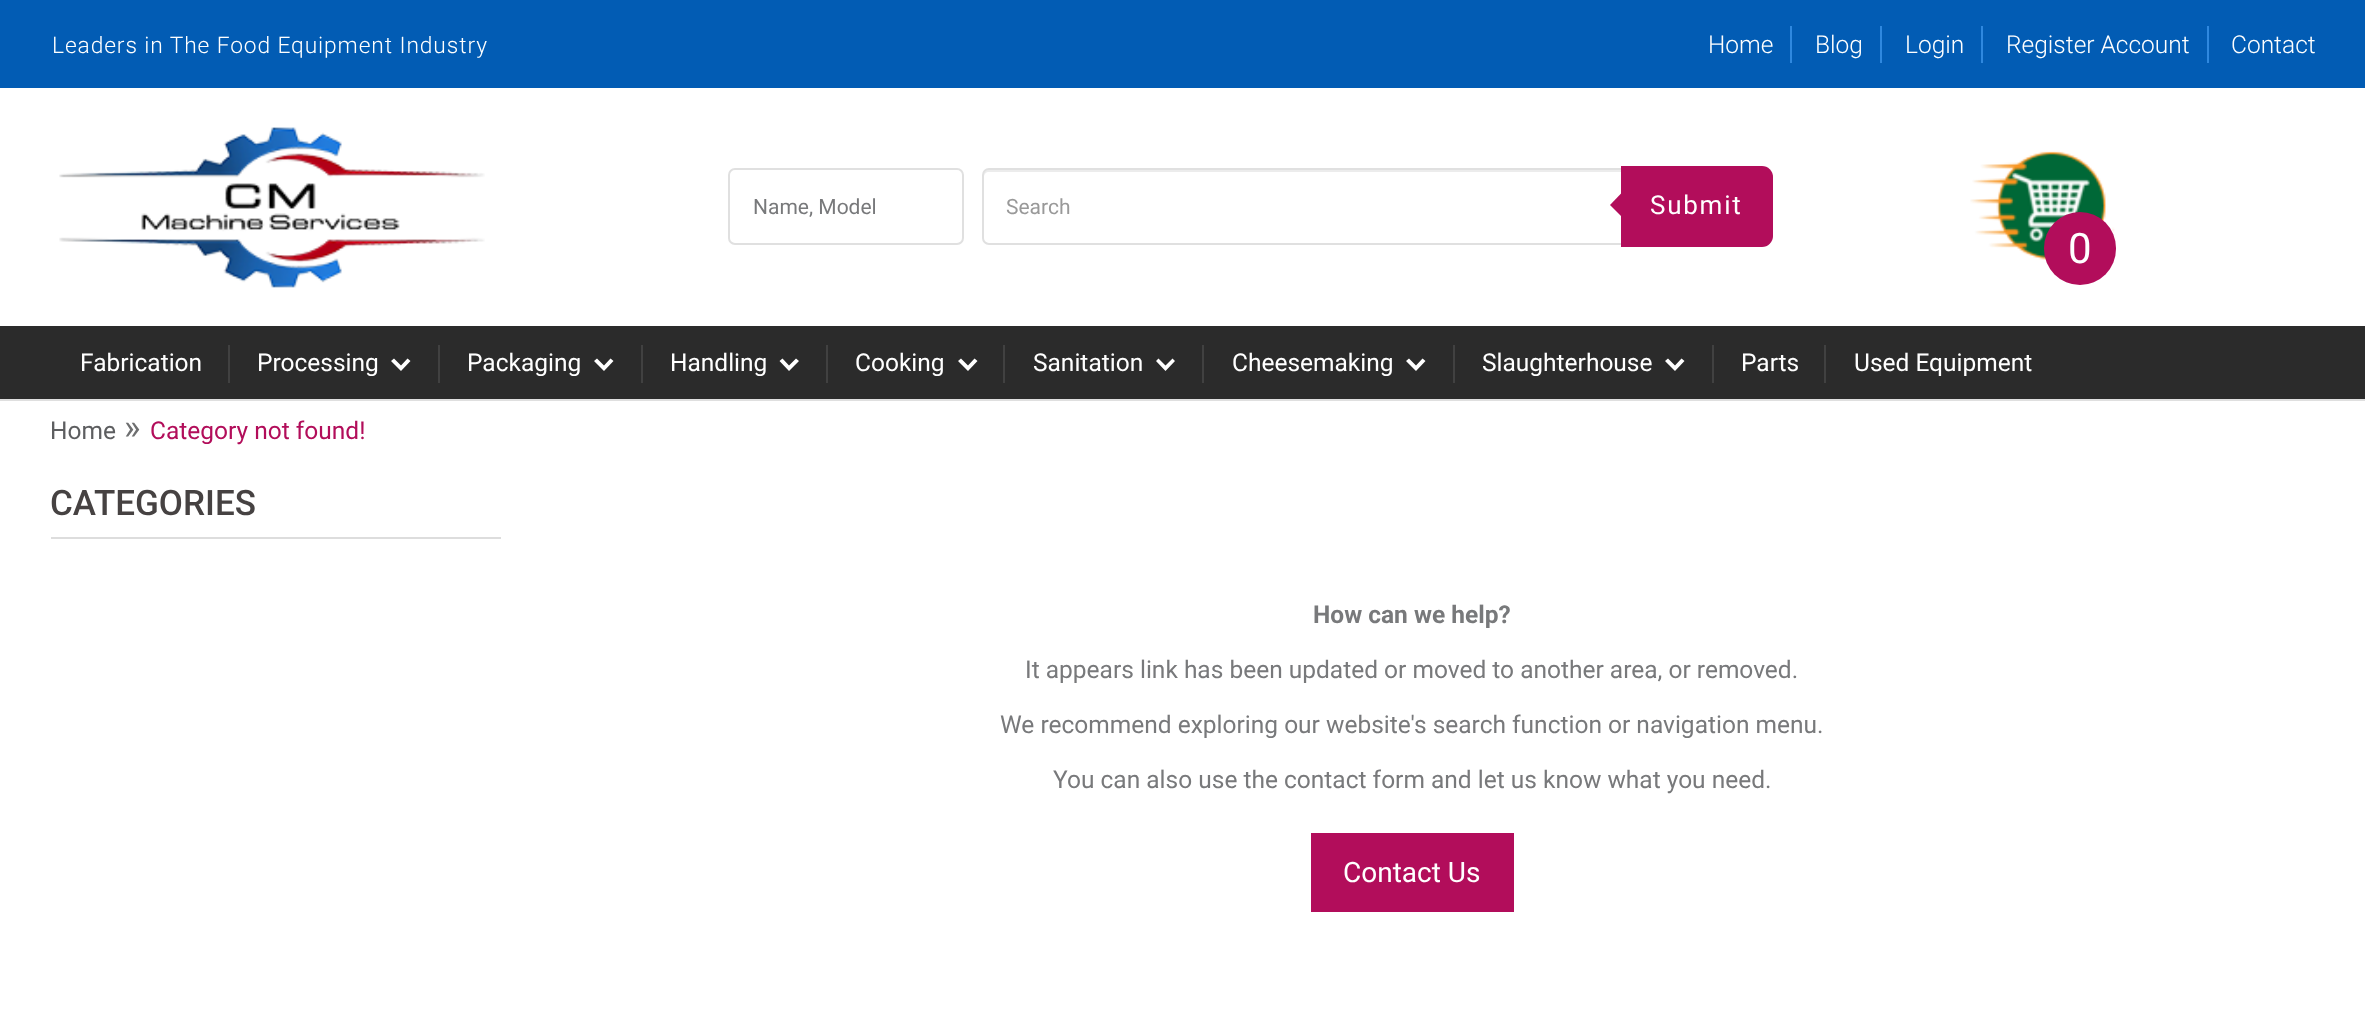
(async () => {
  const canvas = document.querySelector("canvas");
  canvas.width = 2365;
  canvas.height = 1016;
  const ctx = canvas.getContext("2d");
  ctx.miterLimit = 4;
  ctx.fontKerning = "normal";
  async function loadImage(src) {
    const img = new Image();
    img.src = src;
    await img.decode();
    return img;
  }
  let path;

  ctx.fillStyle = "#ffffff";
  ctx.fillRect(0, 0, 2365, 1016);
  for (const [x, y, w, h, color] of [
    [0, 0, 2365, 88, "#025cb4"],
    [1790, 26, 2, 37, "#2f88df"],
    [1880, 26, 2, 37, "#2f88df"],
    [1981, 26, 2, 37, "#2f88df"],
    [2207, 26, 2, 37, "#2f88df"],
  ]) {
    ctx.fillStyle = color;
    ctx.fillRect(x, y, w, h);
  }
  ctx.drawImage(await loadImage("img/1.png"), 59, 127, 426, 161);
  ctx.beginPath();
  ctx.roundRect(729, 169, 234, 75, 6);
  ctx.strokeStyle = "#e0e0e0";
  ctx.lineWidth = 2;
  ctx.stroke();
  ctx.fillStyle = "#ececec";
  path = new Path2D("M989 172H1622C1625 172 1628 174 1628 177V175C1628 172 1626 170 1623 170H989C986 170 984 172 984 175V177C984 174 986 172 989 172Z");
  ctx.fill(path);
  ctx.beginPath();
  ctx.roundRect(983, 169, 645, 75, 6);
  ctx.stroke();
  ctx.fillStyle = "#b20d5b";
  ctx.beginPath();
  ctx.roundRect(1621, 166, 152, 81, [0, 11, 11, 0]);
  ctx.fill();
  path = new Path2D("M1622 192.5V217L1610 205Z");
  ctx.fill(path);
  ctx.drawImage(await loadImage("img/2.png"), 1970, 151, 146, 109);
  ctx.beginPath();
  ctx.roundRect(2044, 212, 72, 73, 36);
  ctx.fill();
  for (const [x, y, w, h, color] of [
    [0, 326, 2365, 73, "#2b2b2b"],
    [0, 399, 2365, 2, "#dfdfdf"],
    [228, 345, 2, 38, "#414141"],
  ]) {
    ctx.fillStyle = color;
    ctx.fillRect(x, y, w, h);
  }
  ctx.fillStyle = "#ffffff";
  path = new Path2D("M410.5 361L407.5 358.5L401 365.5L394 358.5L391 361L401 371Z");
  ctx.fill(path);
  ctx.fillStyle = "#414141";
  ctx.fillRect(438, 345, 2, 38);
  ctx.fillStyle = "#ffffff";
  path = new Path2D("M613.5 361L610.5 358.5L604 365.5L597 358.5L594 361L604 371Z");
  ctx.fill(path);
  ctx.fillStyle = "#414141";
  ctx.fillRect(641, 345, 2, 38);
  ctx.fillStyle = "#ffffff";
  path = new Path2D("M799 361L796 358.5L789 365.5L782.5 358.5L779.5 361L789 371Z");
  ctx.fill(path);
  ctx.fillStyle = "#414141";
  ctx.fillRect(826, 345, 2, 38);
  ctx.fillStyle = "#ffffff";
  path = new Path2D("M977.5 361L974.5 358.5L968 365.5L961 358.5L958 361L968 371Z");
  ctx.fill(path);
  ctx.fillStyle = "#414141";
  ctx.fillRect(1003, 345, 2, 38);
  ctx.fillStyle = "#ffffff";
  path = new Path2D("M1175 361L1172.5 358.5L1165.5 365.5L1158.5 358.5L1156 361L1165.5 371Z");
  ctx.fill(path);
  ctx.fillStyle = "#414141";
  ctx.fillRect(1202, 345, 2, 38);
  ctx.fillStyle = "#ffffff";
  path = new Path2D("M1425.5 361L1422.5 358.5L1416 365.5L1409 358.5L1406 361L1416 371Z");
  ctx.fill(path);
  ctx.fillStyle = "#414141";
  ctx.fillRect(1453, 345, 2, 38);
  ctx.fillStyle = "#ffffff";
  path = new Path2D("M1684.5 361L1681.5 358.5L1675 365.5L1668 358.5L1665 361L1675 371Z");
  ctx.fill(path);
  for (const [x, y, w, h, color] of [
    [1712, 345, 2, 38, "#414141"],
    [1824, 345, 2, 38, "#414141"],
    [51, 537, 450, 2, "#dddddd"],
    [1311, 833, 203, 79, "#b20d5b"],
  ]) {
    ctx.fillStyle = color;
    ctx.fillRect(x, y, w, h);
  }
  ctx.letterSpacing = "0.9px";
  ctx.font = "300 22.75px Roboto";
  ctx.fillStyle = "#ffffff";
  ctx.fillText("Leaders in The Food Equipment Industry", 52, 53);
  ctx.letterSpacing = "0px";
  ctx.font = "300 24.5px Roboto";
  for (const [text, x, y] of [
    ["Home", 1708, 53],
    ["Blog", 1815, 53],
    ["Login", 1905, 53],
    ["Register Account", 2006, 53],
    ["Contact", 2231, 53],
  ]) {
    ctx.fillText(text, x, y);
  }
  ctx.font = "21px Roboto";
  ctx.fillStyle = "#78797b";
  ctx.fillText("Name, Model", 753, 214);
  ctx.fillStyle = "#999999";
  ctx.fillText("Search", 1006, 214);
  ctx.letterSpacing = "1.75px";
  ctx.font = "26px Roboto";
  ctx.fillStyle = "#ffffff";
  ctx.fillText("Submit", 1650, 214);
  ctx.letterSpacing = "0px";
  ctx.font = "42px Roboto";
  ctx.fillText("0", 2068, 263);
  ctx.font = "24.5px Roboto";
  for (const [text, x, y] of [
    ["Fabrication", 80, 371],
    ["Processing", 257, 371],
    ["Packaging", 467, 371],
    ["Handling", 670, 371],
    ["Cooking", 855, 371],
    ["Sanitation", 1033, 371],
    ["Cheesemaking", 1232, 371],
    ["Slaughterhouse", 1482, 371],
    ["Parts", 1741, 371],
    ["Used Equipment", 1854, 371],
  ]) {
    ctx.fillText(text, x, y);
  }
  ctx.fillStyle = "#5d5e60";
  ctx.fillText("Home", 50, 439);
  ctx.font = "35px Roboto";
  ctx.fillStyle = "#6e6f70";
  ctx.fillText("»", 124, 439);
  ctx.font = "24.5px Roboto";
  ctx.fillStyle = "#b20d5a";
  ctx.fillText("Category not found!", 150, 439);
  ctx.font = "500 35px Roboto";
  ctx.fillStyle = "#464242";
  ctx.fillText("CATEGORIES", 50, 515);
  ctx.font = "bold 24.5px Roboto";
  ctx.fillStyle = "#78797b";
  ctx.fillText("How can we help?", 1313, 623);
  ctx.font = "24.5px Roboto";
  for (const [text, x, y] of [
    ["It appears link has been updated or moved to another area, or removed.", 1025, 678],
    ["We recommend exploring our website's search function or navigation menu.", 1000, 733],
    ["You can also use the contact form and let us know what you need.", 1053, 788],
  ]) {
    ctx.fillText(text, x, y);
  }
  ctx.font = "28px Roboto";
  ctx.fillStyle = "#ffffff";
  ctx.fillText("Contact Us", 1343, 882);
})();
